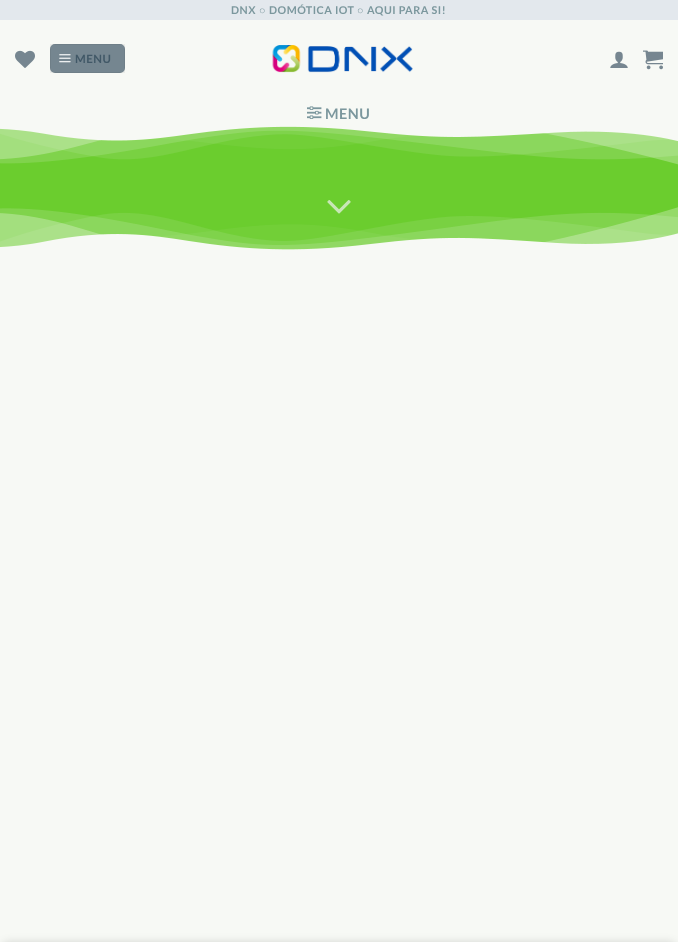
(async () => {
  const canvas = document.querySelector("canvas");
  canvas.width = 678;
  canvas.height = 942;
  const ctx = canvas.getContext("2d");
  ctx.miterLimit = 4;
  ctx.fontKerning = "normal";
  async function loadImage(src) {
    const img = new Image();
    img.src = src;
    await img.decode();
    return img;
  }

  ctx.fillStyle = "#f7f9f5";
  ctx.fillRect(0, 0, 678, 942);
  ctx.fillStyle = "#e3e8ed";
  ctx.fillRect(0, 0, 678, 20);
  ctx.drawImage(await loadImage("img/1.png"), 15, 50, 20, 18);
  ctx.fillStyle = "#758690";
  ctx.beginPath();
  ctx.roundRect(50, 44, 75, 29, 5);
  ctx.fill();
  ctx.strokeStyle = "rgba(0, 0, 0, 0.05)";
  ctx.strokeRect(50.5, 44.5, 74, 28);
  ctx.drawImage(await loadImage("img/2.png"), 59, 54, 12, 9);
  ctx.drawImage(await loadImage("img/3.png"), 272, 45, 141, 28);
  ctx.drawImage(await loadImage("img/4.png"), 610, 51, 18, 17);
  ctx.drawImage(await loadImage("img/5.png"), 643, 50, 20, 20);
  ctx.drawImage(await loadImage("img/6.png"), 307, 106, 15, 13);
  ctx.fillStyle = "#6bcd2e";
  ctx.fillRect(0, 126, 678, 124);
  ctx.drawImage(await loadImage("img/7.png"), 0, 125, 678, 40);
  ctx.drawImage(await loadImage("img/9.png"), 0, 207, 678, 44);
  ctx.drawImage(await loadImage("img/8.png"), 327, 200, 24, 14);
  ctx.fillStyle = "rgba(0, 0, 0, 0.14)";
  ctx.filter = "blur(4.5px)";
  ctx.beginPath();
  ctx.roundRect(0, 942, 678, 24, 10);
  ctx.fill();
  ctx.filter = "none";
  ctx.letterSpacing = "0.5px";
  ctx.font = "bold 10.75px Lato";
  ctx.fillStyle = "#7b979d";
  ctx.fillText("DNX", 231, 14);
  ctx.font = "bold 10.75px Liberation Sans";
  ctx.fillText("○", 259, 14);
  ctx.font = "bold 10.75px Lato";
  ctx.fillText("DOMÓTICA IOT", 269, 14);
  ctx.font = "bold 10.75px Liberation Sans";
  ctx.fillText("○", 357, 14);
  ctx.font = "bold 10.75px Lato";
  ctx.fillText("AQUI PARA SI!", 367, 14);
  ctx.font = "bold 11.5px Lato";
  ctx.fillStyle = "#415867";
  ctx.fillText("MENU", 75, 63);
  ctx.font = "bold 14.5px Lato";
  ctx.fillStyle = "#7b979d";
  ctx.fillText("MENU", 325, 119);
})();
